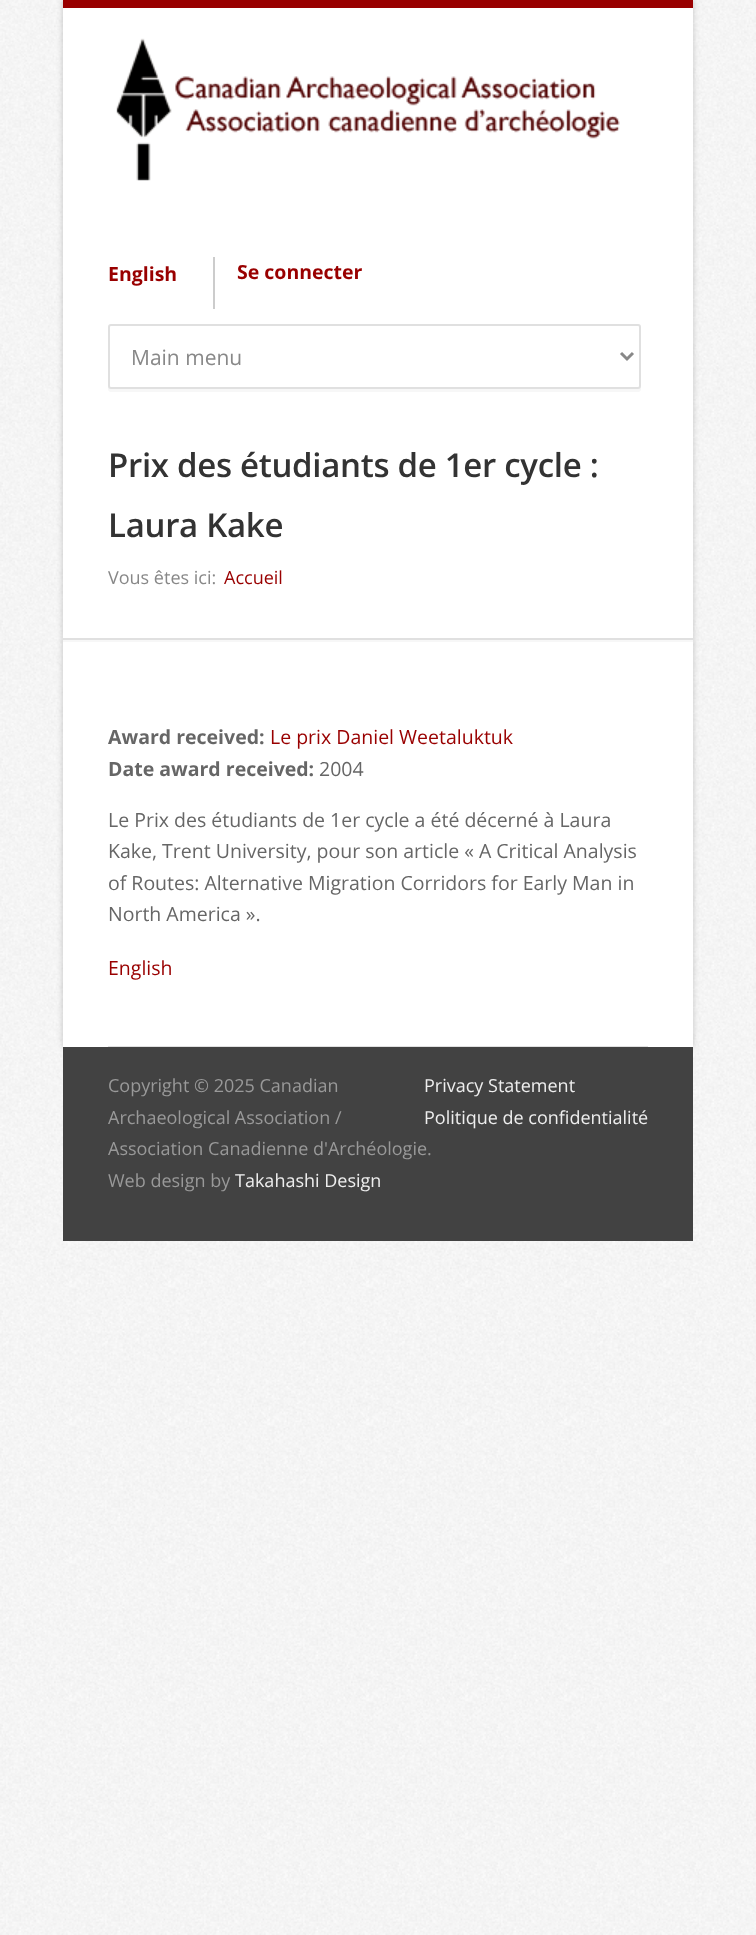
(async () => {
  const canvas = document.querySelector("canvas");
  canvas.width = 756;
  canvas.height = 1935;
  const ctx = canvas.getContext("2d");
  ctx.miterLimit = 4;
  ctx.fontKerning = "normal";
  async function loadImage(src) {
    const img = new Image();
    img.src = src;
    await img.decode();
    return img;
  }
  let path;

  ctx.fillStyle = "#ffffff";
  ctx.fillRect(0, 0, 756, 1935);
  ctx.drawImage(await loadImage("img/1.png"), 0, 0, 756, 1935);
  ctx.fillStyle = "rgba(0, 0, 0, 0.2)";
  ctx.filter = "blur(3px)";
  ctx.beginPath();
  ctx.rect(63, 0, 630, 1047);
  ctx.fill();
  ctx.filter = "none";
  ctx.fillStyle = "#ffffff";
  ctx.fillRect(63, 8, 630, 1039);
  ctx.fillStyle = "#990000";
  ctx.fillRect(63, 0, 630, 8);
  ctx.drawImage(await loadImage("img/2.png"), 116, 38, 504, 143);
  ctx.fillStyle = "#cccccc";
  ctx.fillRect(213, 257, 2, 52);
  ctx.fillStyle = "#f7f7f7";
  path = new Path2D("M108 386V389C108 391 109 392 111 392H638C640 392 641 391 641 389V330L640 328V386C640 387 639 388 638 388H111C109 388 108 387 108 386Z");
  ctx.fill(path);
  ctx.fillStyle = "#ffffff";
  ctx.beginPath();
  ctx.roundRect(109, 325, 531, 63, 2);
  ctx.fill();
  ctx.strokeStyle = "#e0e0e0";
  ctx.lineWidth = 2;
  ctx.stroke();
  path = new Path2D("M621 353L627 359L633 353");
  ctx.strokeStyle = "#888888";
  ctx.lineWidth = 3;
  ctx.stroke(path);
  for (const [x, y, w, h, color] of [
    [63, 640, 630, 2, "#f7f7f7"],
    [63, 638, 630, 2, "#e0e0e0"],
    [108, 1046, 540, 1, "#e0e0e0"],
    [63, 1047, 630, 194, "#424242"],
  ]) {
    ctx.fillStyle = color;
    ctx.fillRect(x, y, w, h);
  }
  ctx.font = "bold 19.5px Open Sans";
  ctx.fillStyle = "#990000";
  ctx.fillText("English", 108, 281);
  ctx.fillText("Se connecter", 237, 279);
  ctx.font = "21px Open Sans";
  ctx.fillStyle = "#888888";
  ctx.fillText("Main menu", 131, 365);
  ctx.letterSpacing = "-0.3px";
  ctx.font = "600 33px Open Sans";
  ctx.fillStyle = "#333333";
  ctx.fillText("Prix des étudiants de 1er cycle :", 108, 477);
  ctx.fillText("Laura Kake", 108, 537);
  ctx.letterSpacing = "0px";
  ctx.font = "18px Open Sans";
  ctx.fillStyle = "#888888";
  ctx.fillText("Vous êtes ici:", 108, 584);
  ctx.fillStyle = "#990000";
  ctx.fillText("Accueil", 224, 584);
  ctx.font = "bold 19.5px Open Sans";
  ctx.fillStyle = "#666666";
  ctx.fillText("Award received:", 108, 744);
  ctx.font = "19.5px Open Sans";
  ctx.fillStyle = "#990000";
  ctx.fillText("Le prix Daniel Weetaluktuk", 270, 744);
  ctx.font = "bold 19.5px Open Sans";
  ctx.fillStyle = "#666666";
  ctx.fillText("Date award received:", 108, 776);
  ctx.font = "19.5px Open Sans";
  for (const [text, x, y] of [
    ["2004", 319, 776],
    ["Le Prix des étudiants de 1er cycle a été décerné à Laura", 108, 827],
    ["Kake, Trent University, pour son article « A Critical Analysis", 108, 858],
    ["of Routes: Alternative Migration Corridors for Early Man in", 108, 890],
    ["North America ».", 108, 921],
  ]) {
    ctx.fillText(text, x, y);
  }
  ctx.fillStyle = "#990000";
  ctx.fillText("English", 108, 975);
  ctx.font = "18px Open Sans";
  ctx.fillStyle = "#999999";
  ctx.fillText("Copyright © 2025 Canadian", 108, 1092);
  ctx.fillStyle = "#eeeeee";
  ctx.fillText("Privacy Statement", 424, 1092);
  ctx.fillText("Politique de confidentialité", 424, 1124);
  ctx.fillStyle = "#999999";
  for (const [text, x, y] of [
    ["Archaeological Association /", 108, 1124],
    ["Association Canadienne d'Archéologie.", 108, 1155],
    ["Web design by", 108, 1187],
  ]) {
    ctx.fillText(text, x, y);
  }
  ctx.fillStyle = "#eeeeee";
  ctx.fillText("Takahashi Design", 235, 1187);
})();
